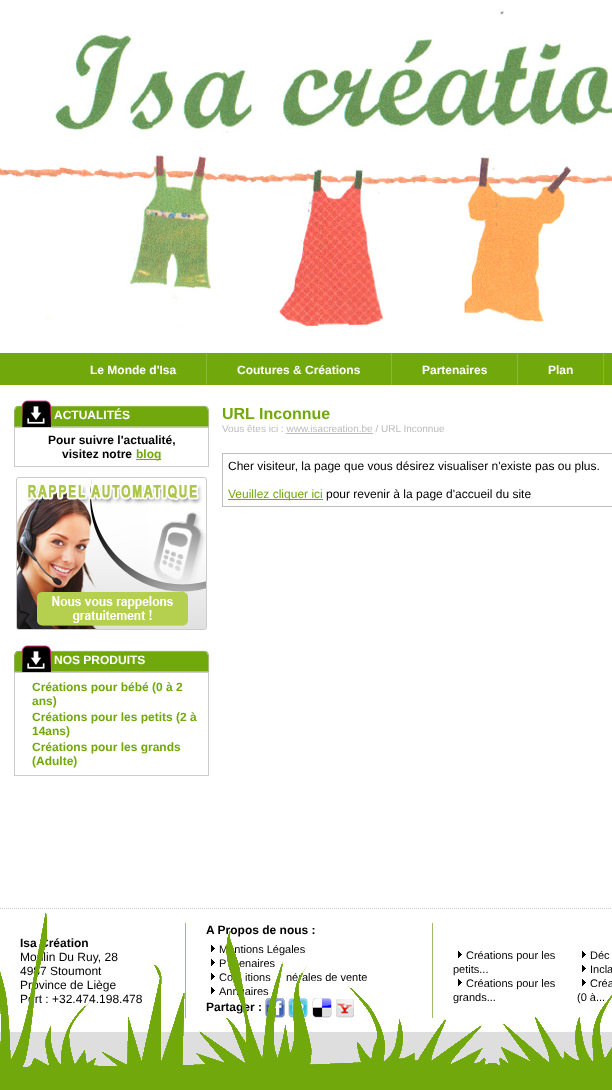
(async () => {
  const canvas = document.querySelector("canvas");
  canvas.width = 612;
  canvas.height = 1090;
  const ctx = canvas.getContext("2d");
  ctx.miterLimit = 4;
  ctx.fontKerning = "normal";
  async function loadImage(src) {
    const img = new Image();
    img.src = src;
    await img.decode();
    return img;
  }
  let path;

  ctx.fillStyle = "#dedede";
  ctx.fillRect(0, 0, 612, 1090);
  ctx.drawImage(await loadImage("img/1.png"), 0, 0, 612, 353);
  ctx.drawImage(await loadImage("img/2.png"), 0, 8, 612, 329);
  for (const [x, y, w, h, color] of [
    [0, 353, 612, 32, "#71a90d"],
    [206, 353, 1, 32, "#8ab939"],
    [391, 353, 1, 32, "#8ab939"],
    [517, 353, 1, 32, "#8ab939"],
    [603, 353, 1, 32, "#8ab939"],
    [0, 385, 612, 647, "#ffffff"],
  ]) {
    ctx.fillStyle = color;
    ctx.fillRect(x, y, w, h);
  }
  ctx.drawImage(await loadImage("img/3.png"), 14, 400, 195, 27);
  ctx.strokeStyle = "#cccccc";
  ctx.strokeRect(14.5, 427.5, 194, 39);
  ctx.fillStyle = "#71a90d";
  ctx.fillRect(136, 459, 25, 1);
  ctx.drawImage(await loadImage("img/4.png"), 16, 477, 191, 153);
  ctx.drawImage(await loadImage("img/3.png"), 14, 645, 195, 27);
  ctx.strokeRect(14.5, 672.5, 194, 103);
  ctx.fillStyle = "#bcbcbc";
  ctx.fillRect(286, 433, 87, 1);
  ctx.strokeStyle = "#bebebe";
  ctx.strokeRect(222.5, 453.5, 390, 53);
  ctx.fillStyle = "#71a90d";
  ctx.fillRect(228, 499, 95, 1);
  path = new Path2D("M0 908.5H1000");
  ctx.strokeStyle = "#cccccc";
  ctx.setLineDash([1, 1]);
  ctx.stroke(path);
  ctx.fillStyle = "#9dbc6d";
  ctx.fillRect(185, 923, 1, 95);
  ctx.fillRect(432, 923, 1, 95);
  ctx.drawImage(await loadImage("img/5.png"), 211, 945, 4, 7);
  ctx.drawImage(await loadImage("img/5.png"), 211, 959, 4, 7);
  ctx.drawImage(await loadImage("img/5.png"), 211, 973, 4, 7);
  ctx.drawImage(await loadImage("img/5.png"), 211, 987, 4, 7);
  ctx.drawImage(await loadImage("img/6.png"), 265, 998, 20, 20);
  ctx.drawImage(await loadImage("img/7.png"), 288, 998, 20, 20);
  ctx.drawImage(await loadImage("img/8.png"), 312, 998, 20, 20);
  ctx.drawImage(await loadImage("img/9.png"), 336, 999, 18, 19);
  ctx.drawImage(await loadImage("img/5.png"), 458, 951, 4, 7);
  ctx.drawImage(await loadImage("img/5.png"), 582, 951, 4, 7);
  ctx.drawImage(await loadImage("img/5.png"), 582, 965, 4, 7);
  ctx.drawImage(await loadImage("img/5.png"), 458, 979, 4, 7);
  ctx.drawImage(await loadImage("img/5.png"), 582, 979, 4, 7);
  ctx.font = "bold 12px Liberation Sans";
  ctx.fillStyle = "#ffffff";
  for (const [text, x, y] of [
    ["Le Monde d'Isa", 90, 374],
    ["Coutures & Créations", 237, 374],
    ["Partenaires", 422, 374],
    ["Plan", 548, 374],
    ["ACTUALITÉS", 54, 419],
  ]) {
    ctx.fillText(text, x, y);
  }
  ctx.fillStyle = "#000000";
  ctx.fillText("Pour suivre l'actualité,", 48, 444);
  ctx.fillText("visitez notre", 62, 458);
  ctx.fillStyle = "#71a90d";
  ctx.fillText("blog", 136, 458);
  ctx.fillStyle = "#ffffff";
  ctx.fillText("NOS PRODUITS", 54, 664);
  ctx.fillStyle = "#71a90d";
  for (const [text, x, y] of [
    ["Créations pour bébé (0 à 2", 32, 691],
    ["ans)", 32, 705],
    ["Créations pour les petits (2 à", 32, 721],
    ["14ans)", 32, 735],
    ["Créations pour les grands", 32, 751],
    ["(Adulte)", 32, 765],
  ]) {
    ctx.fillText(text, x, y);
  }
  ctx.font = "bold 16px Liberation Sans";
  ctx.fillText("URL Inconnue", 222, 419);
  ctx.font = "10px Liberation Sans";
  ctx.fillStyle = "#bcbcbc";
  ctx.fillText("Vous êtes ici : www.isacreation.be / URL Inconnue", 222, 432);
  ctx.font = "12px Liberation Sans";
  ctx.fillStyle = "#000000";
  ctx.fillText("Cher visiteur, la page que vous désirez visualiser n'existe pas ou plus.", 228, 470);
  ctx.fillStyle = "#71a90d";
  ctx.fillText("Veuillez cliquer ici", 228, 498);
  ctx.fillStyle = "#000000";
  ctx.fillText("pour revenir à la page d'accueil du site", 326, 498);
  ctx.font = "bold 12px Liberation Sans";
  ctx.fillText("Isa Création", 20, 947);
  ctx.font = "12px Liberation Sans";
  for (const [text, x, y] of [
    ["Moulin Du Ruy, 28", 20, 961],
    ["4987 Stoumont", 20, 975],
    ["Province de Liège", 20, 989],
    ["Port : +32.474.198.478", 20, 1003],
  ]) {
    ctx.fillText(text, x, y);
  }
  ctx.font = "bold 12px Liberation Sans";
  ctx.fillText("A Propos de nous :", 206, 934);
  ctx.font = "11px Liberation Sans";
  for (const [text, x, y] of [
    ["Mentions Légales", 219, 953],
    ["P", 219, 967],
    ["enaires", 239, 967],
    ["Co", 219, 981],
    ["itions", 245, 981],
    ["nérales de vente", 286, 981],
    ["Annuaires", 219, 995],
  ]) {
    ctx.fillText(text, x, y);
  }
  ctx.font = "bold 12px Liberation Sans";
  ctx.fillText("Partager :", 206, 1011);
  ctx.font = "11px Liberation Sans";
  for (const [text, x, y] of [
    ["Créations pour les", 466, 959],
    ["petits...", 453, 973],
    ["Déc", 590, 959],
    ["Incla", 590, 973],
    ["Créations pour les", 466, 987],
    ["grands...", 453, 1001],
    ["Créa", 590, 987],
    ["(0 à...", 577, 1001],
  ]) {
    ctx.fillText(text, x, y);
  }
  ctx.drawImage(await loadImage("img/10.png"), 0, 913, 612, 177);
})();
